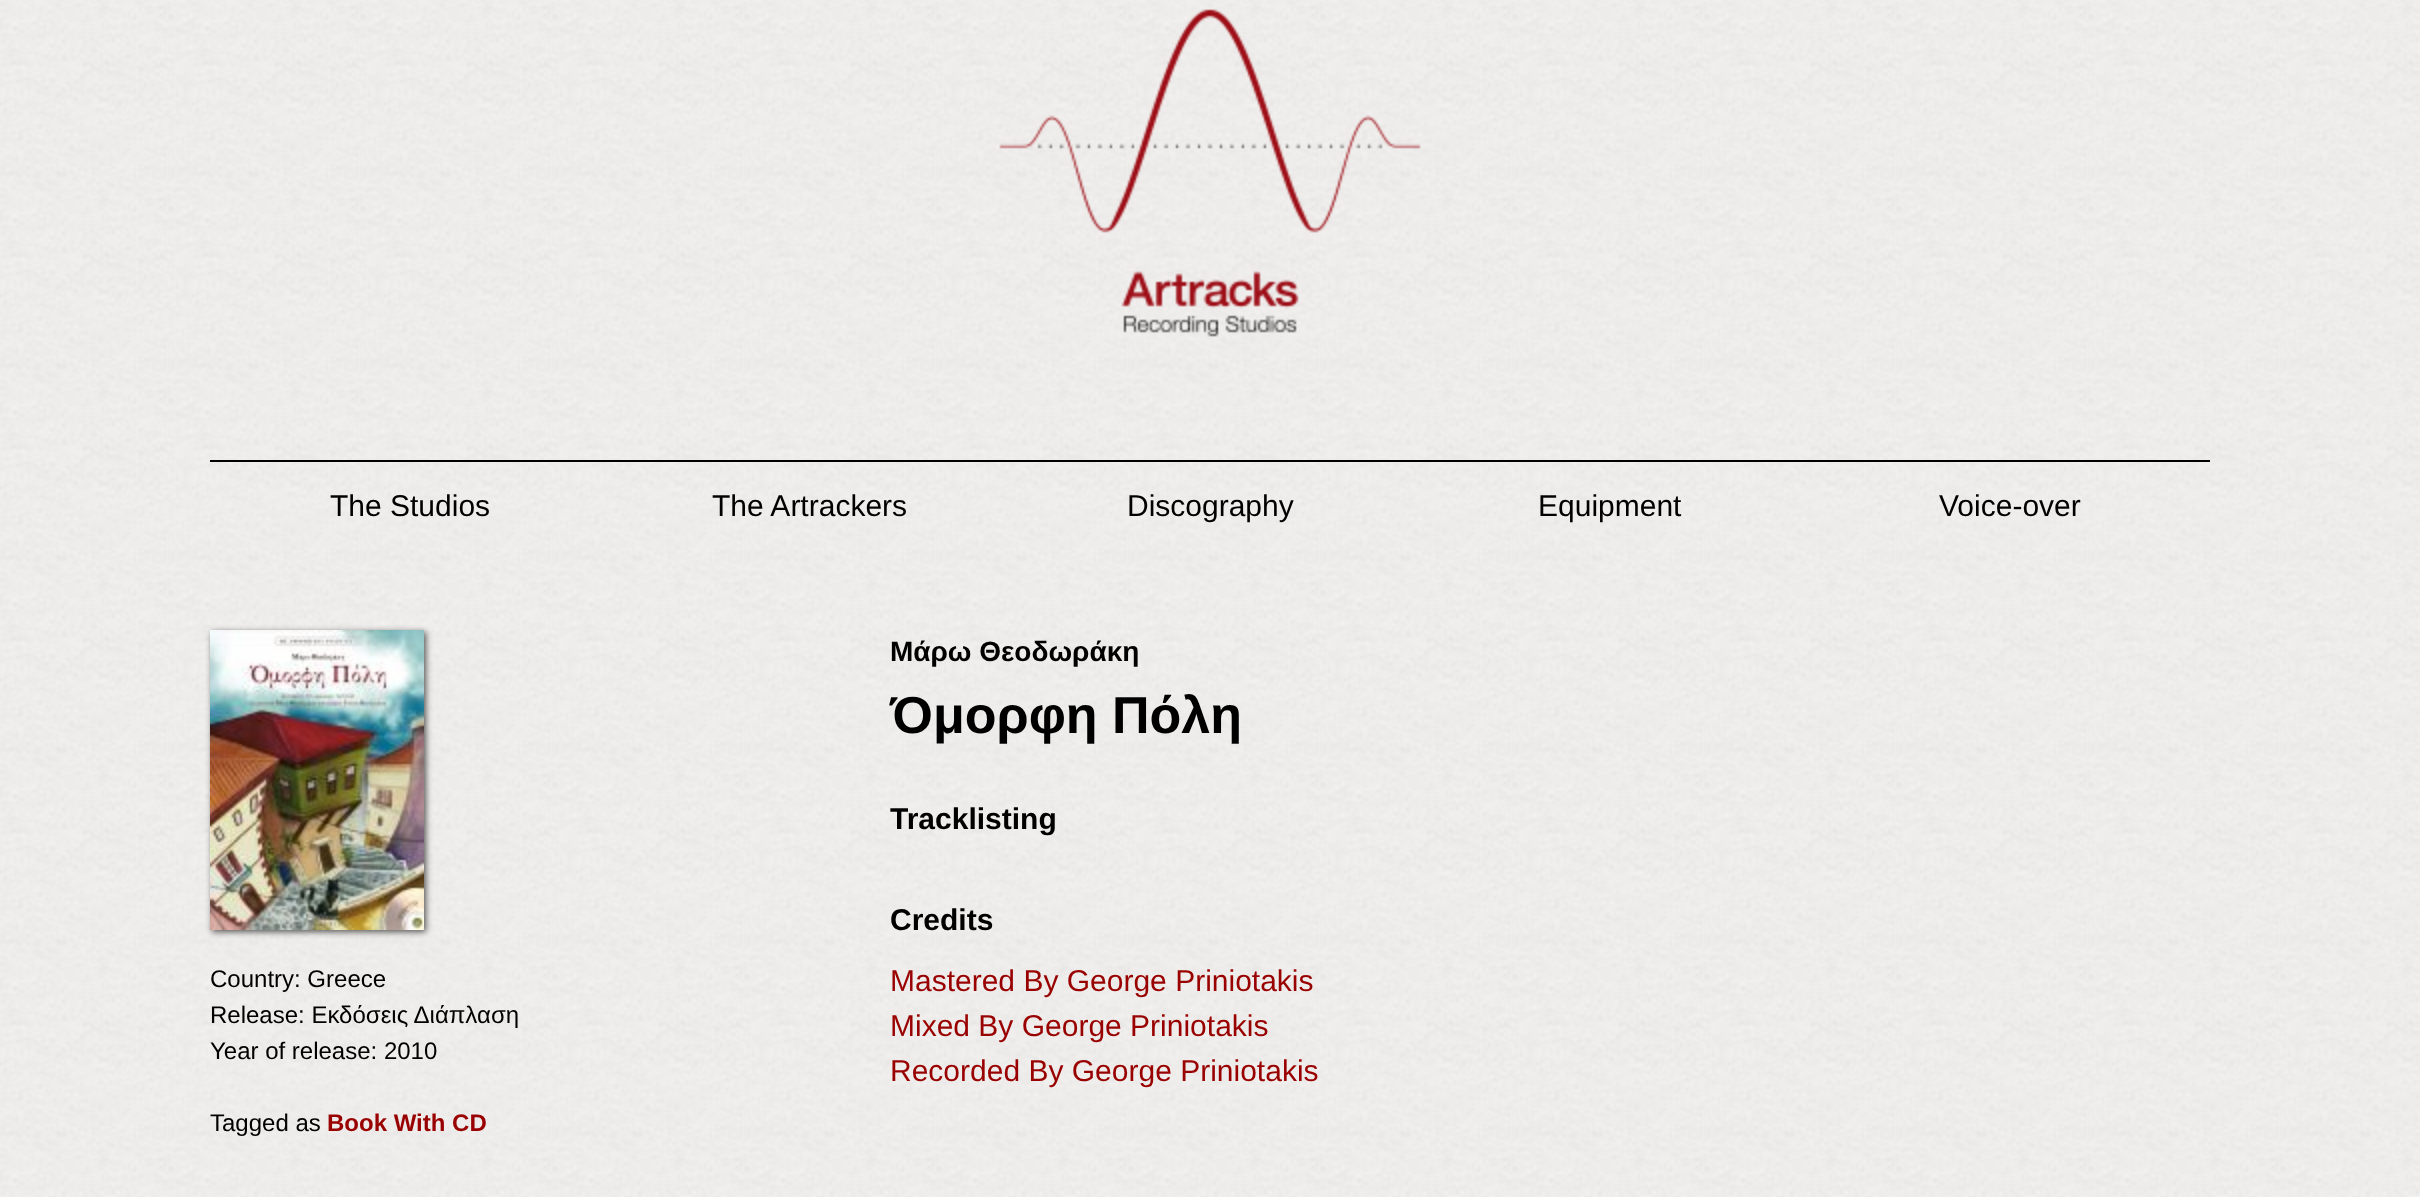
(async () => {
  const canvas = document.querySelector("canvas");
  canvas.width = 2420;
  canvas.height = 1197;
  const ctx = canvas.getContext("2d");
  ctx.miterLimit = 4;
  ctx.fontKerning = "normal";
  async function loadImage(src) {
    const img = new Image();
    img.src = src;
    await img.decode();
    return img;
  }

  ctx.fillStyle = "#ffffff";
  ctx.fillRect(0, 0, 2420, 1197);
  ctx.drawImage(await loadImage("img/1.png"), 0, 0, 2420, 1197);
  ctx.drawImage(await loadImage("img/2.png"), 999, 9, 422, 328);
  ctx.fillStyle = "#000000";
  ctx.fillRect(210, 460, 2000, 2);
  ctx.fillStyle = "#555555";
  ctx.filter = "blur(3px)";
  ctx.beginPath();
  ctx.rect(212, 632, 214, 300);
  ctx.fill();
  ctx.filter = "none";
  ctx.drawImage(await loadImage("img/3.png"), 210, 630, 214, 300);
  ctx.font = "30px Liberation Sans";
  ctx.fillStyle = "#000000";
  for (const [text, x, y] of [
    ["The Studios", 330, 516],
    ["The Artrackers", 712, 516],
    ["Discography", 1127, 516],
    ["Equipment", 1538, 516],
    ["Voice-over", 1939, 516],
  ]) {
    ctx.fillText(text, x, y);
  }
  ctx.font = "24px Liberation Sans";
  for (const [text, x, y] of [
    ["Country: Greece", 210, 987],
    ["Release: Εκδόσεις Διάπλαση", 210, 1023],
    ["Year of release: 2010", 210, 1059],
    ["Tagged as", 210, 1131],
  ]) {
    ctx.fillText(text, x, y);
  }
  ctx.font = "bold 24px Liberation Sans";
  ctx.fillStyle = "#990000";
  ctx.fillText("Book With CD", 327, 1131);
  ctx.font = "bold 28px Liberation Sans";
  ctx.fillStyle = "#000000";
  ctx.fillText("Μάρω Θεοδωράκη", 890, 661);
  ctx.font = "bold 52px Liberation Sans";
  ctx.fillText("Όμορφη Πόλη", 890, 733);
  ctx.font = "bold 30px Liberation Sans";
  ctx.fillText("Tracklisting", 890, 829);
  ctx.fillText("Credits", 890, 930);
  ctx.font = "30px Liberation Sans";
  ctx.fillStyle = "#990000";
  for (const [text, x, y] of [
    ["Mastered By George Priniotakis", 890, 991],
    ["Mixed By George Priniotakis", 890, 1036],
    ["Recorded By George Priniotakis", 890, 1081],
  ]) {
    ctx.fillText(text, x, y);
  }
})();
